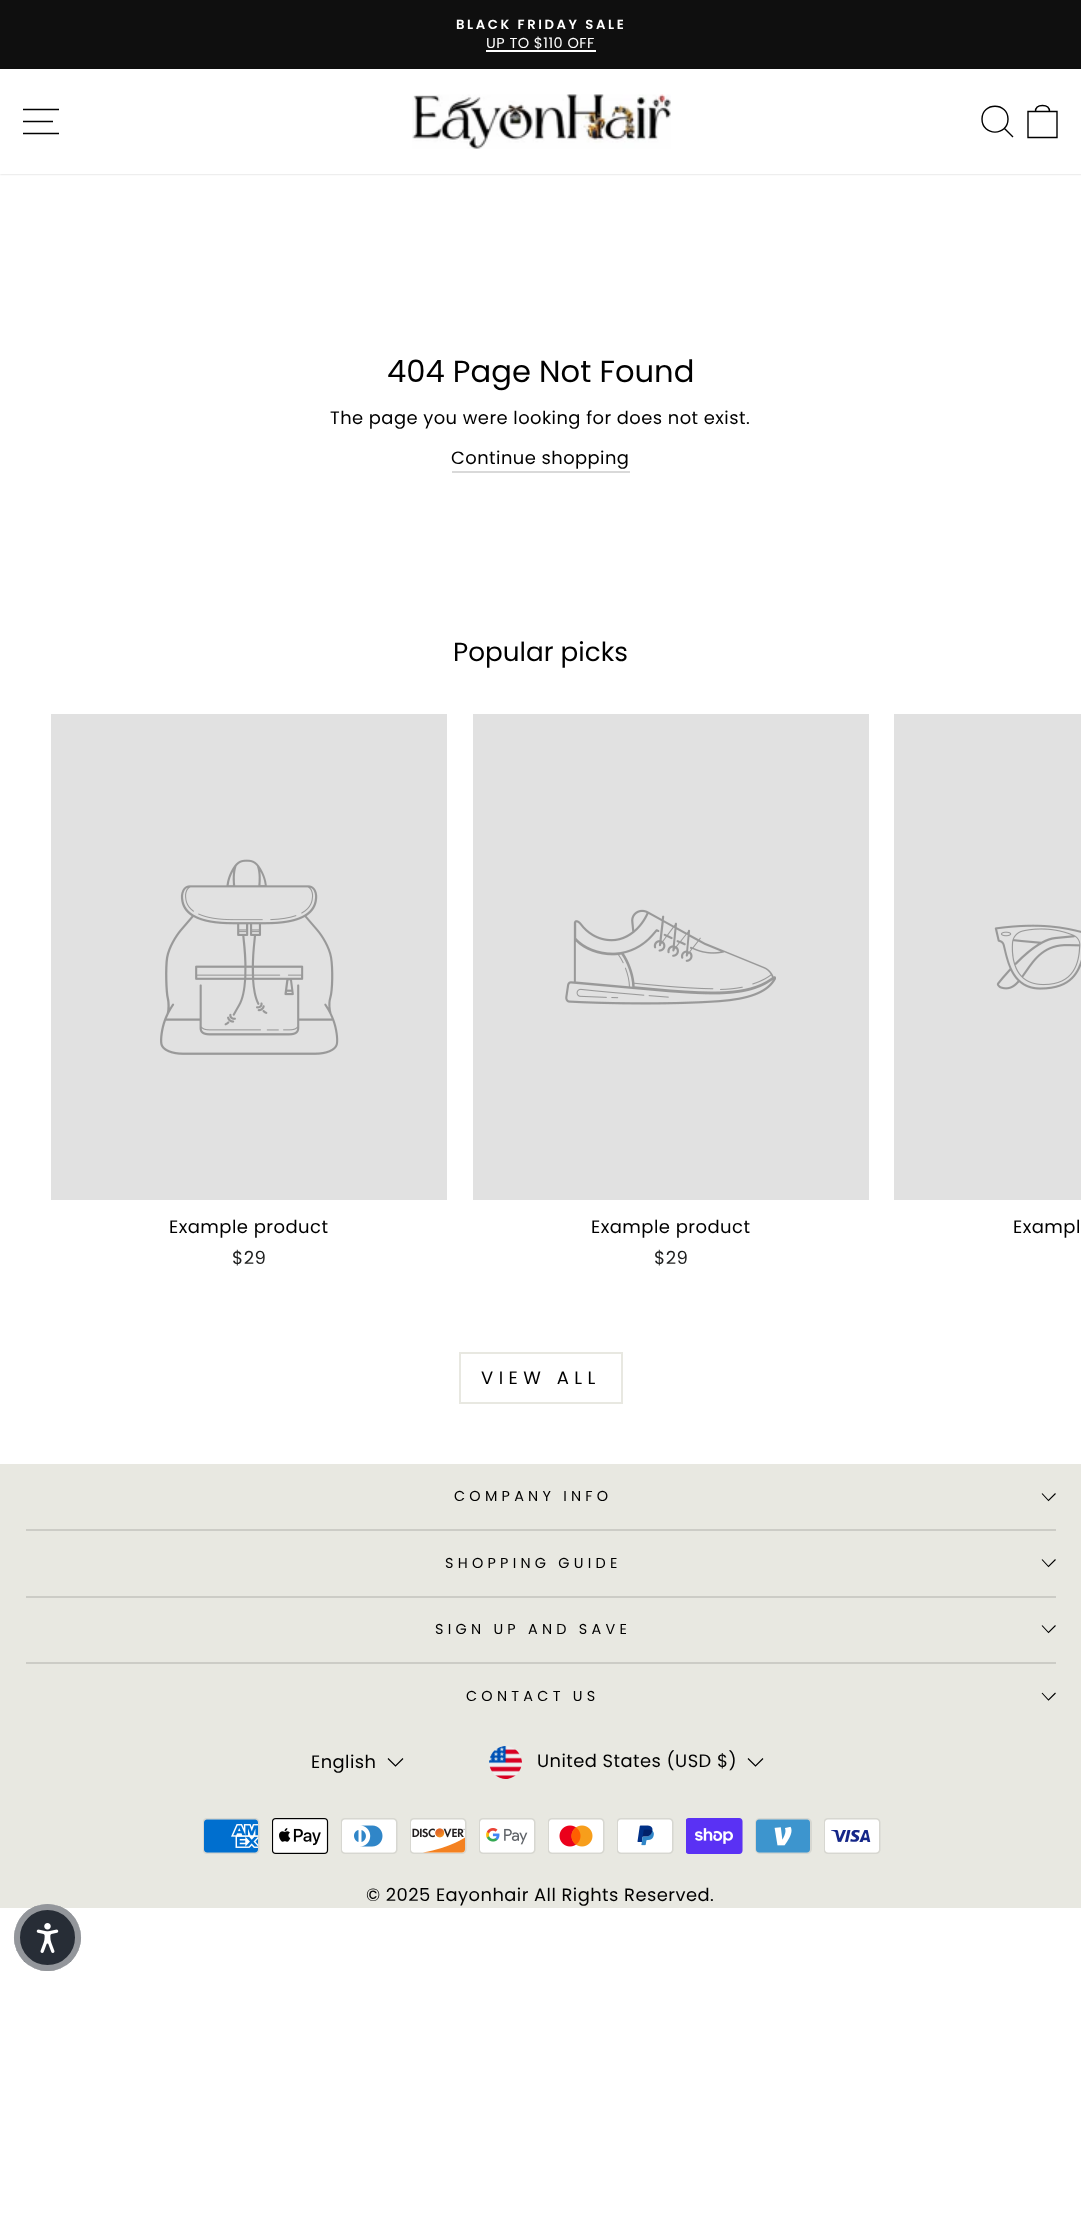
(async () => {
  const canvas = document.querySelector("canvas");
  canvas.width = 1081;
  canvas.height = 2235;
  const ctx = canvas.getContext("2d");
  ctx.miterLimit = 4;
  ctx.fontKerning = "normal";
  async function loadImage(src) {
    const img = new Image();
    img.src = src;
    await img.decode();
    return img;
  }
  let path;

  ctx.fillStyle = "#ffffff";
  ctx.fillRect(0, 0, 1081, 2235);
  ctx.fillStyle = "#0f0f0f";
  ctx.fillRect(0, 0, 1081, 69);
  ctx.fillStyle = "#ffffff";
  ctx.fillRect(486, 50, 110, 2);
  ctx.save();
  path = new Path2D("M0 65H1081V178H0ZM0 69H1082V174H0Z");
  ctx.clip(path, "evenodd");
  ctx.fillStyle = "rgba(0, 0, 0, 0.2)";
  ctx.filter = "blur(1px)";
  ctx.beginPath();
  ctx.rect(0, 69, 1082, 105);
  ctx.fill();
  ctx.filter = "none";
  ctx.restore();
  path = new Path2D("M23 109.5H59M23 121.5H53M23 133.5H59");
  ctx.strokeStyle = "#000000";
  ctx.lineWidth = 1.4;
  ctx.stroke(path);
  ctx.drawImage(await loadImage("img/1.png"), 412, 94, 259, 55);
  path = new Path2D("M1008 119C1008 136.5 982 136.5 982 119C982 102 1008 102 1008 119ZM1013 137L1004.5 128.5");
  ctx.stroke(path);
  path = new Path2D("M1028 111.5H1057V137.5H1028ZM1035.5 111.5C1035.5 106.5 1038.5 105.5 1042.5 105.5C1046.5 105.5 1049.5 106.5 1049.5 111.5");
  ctx.stroke(path);
  ctx.fillStyle = "#d9d9d9";
  ctx.fillRect(452, 471, 178, 2);
  ctx.fillStyle = "#e1e1e1";
  ctx.fillRect(51, 714, 396, 486);
  ctx.drawImage(await loadImage("img/2.png"), 160, 859, 179, 196);
  ctx.fillRect(473, 714, 396, 486);
  ctx.drawImage(await loadImage("img/3.png"), 565, 909, 211, 96);
  ctx.fillRect(894, 714, 187, 486);
  ctx.drawImage(await loadImage("img/4.png"), 994, 924, 87, 66);
  ctx.strokeStyle = "#e8e8e1";
  ctx.lineWidth = 2;
  ctx.strokeRect(460, 1353, 162, 50);
  ctx.fillStyle = "#e8e8e1";
  ctx.fillRect(0, 1464, 1081, 444);
  path = new Path2D("M1042 1493.5L1048.5 1500.5L1055.5 1493.5");
  ctx.strokeStyle = "#000000";
  ctx.lineWidth = 1.1;
  ctx.stroke(path);
  ctx.fillStyle = "#ccccc6";
  ctx.fillRect(26, 1529, 1030, 2);
  path = new Path2D("M1042 1559.5L1048.5 1566.5L1055.5 1559.5");
  ctx.stroke(path);
  ctx.fillRect(26, 1596, 1030, 2);
  path = new Path2D("M1042 1625.5L1048.5 1632.5L1055.5 1625.5");
  ctx.stroke(path);
  ctx.fillRect(26, 1662, 1030, 2);
  path = new Path2D("M1042 1693L1048.5 1700L1055.5 1693");
  ctx.stroke(path);
  path = new Path2D("M388 1758.5L395.5 1766L403 1758.5");
  ctx.lineWidth = 1.2;
  ctx.stroke(path);
  ctx.drawImage(await loadImage("img/5.png"), 489, 1746, 33, 33);
  path = new Path2D("M748 1758.5L755.5 1766L763 1758.5");
  ctx.stroke(path);
  ctx.drawImage(await loadImage("img/6.png"), 203, 1818, 57, 36);
  ctx.drawImage(await loadImage("img/7.png"), 272, 1818, 57, 36);
  ctx.drawImage(await loadImage("img/8.png"), 341, 1818, 57, 36);
  ctx.drawImage(await loadImage("img/9.png"), 410, 1818, 57, 36);
  ctx.drawImage(await loadImage("img/10.png"), 479, 1818, 57, 36);
  ctx.drawImage(await loadImage("img/11.png"), 548, 1818, 57, 36);
  ctx.drawImage(await loadImage("img/12.png"), 617, 1818, 57, 36);
  ctx.drawImage(await loadImage("img/13.png"), 686, 1818, 57, 36);
  ctx.drawImage(await loadImage("img/14.png"), 755, 1818, 57, 36);
  ctx.drawImage(await loadImage("img/15.png"), 824, 1818, 57, 36);
  ctx.fillStyle = "#272d36";
  ctx.beginPath();
  ctx.arc(47.5, 1937.5, 33.5, 0, Math.PI * 2);
  ctx.fill();
  ctx.beginPath();
  ctx.arc(47.5, 1937.5, 30.5, 0, Math.PI * 2);
  ctx.strokeStyle = "rgba(255, 255, 255, 0.5)";
  ctx.lineWidth = 6;
  ctx.stroke();
  ctx.drawImage(await loadImage("img/16.png"), 36, 1923, 23, 30);
  ctx.letterSpacing = "2.6px";
  ctx.font = "600 13.2px Poppins";
  ctx.fillStyle = "#ffffff";
  ctx.fillText("BLACK FRIDAY SALE", 456, 29);
  ctx.letterSpacing = "0.45px";
  ctx.font = "14.5px Poppins";
  ctx.fillText("UP TO $110 OFF", 486, 48);
  ctx.letterSpacing = "0px";
  ctx.font = "30.6px Poppins";
  ctx.fillStyle = "#000000";
  ctx.fillText("404 Page Not Found", 387, 382);
  ctx.letterSpacing = "0.45px";
  ctx.font = "17.9px Poppins";
  ctx.fillText("The page you were looking for does not exist.", 330, 424);
  ctx.fillText("Continue shopping", 451, 464);
  ctx.letterSpacing = "0px";
  ctx.font = "26.25px Poppins";
  ctx.fillText("Popular picks", 453, 661);
  ctx.letterSpacing = "0.45px";
  ctx.font = "18px Poppins";
  ctx.fillText("Example product", 169, 1233);
  ctx.fillStyle = "#1c1d1d";
  ctx.fillText("$29", 232, 1264);
  ctx.fillStyle = "#000000";
  ctx.fillText("Example product", 591, 1233);
  ctx.fillStyle = "#1c1d1d";
  ctx.fillText("$29", 654, 1264);
  ctx.fillStyle = "#000000";
  ctx.fillText("Exampl", 1013, 1233);
  ctx.letterSpacing = "5.5px";
  ctx.fillText("VIEW ALL", 481, 1384);
  ctx.letterSpacing = "4.25px";
  ctx.font = "14.4px Poppins";
  for (const [text, x, y] of [
    ["COMPANY INFO", 454, 1501],
    ["SHOPPING GUIDE", 445, 1568],
    ["SIGN UP AND SAVE", 435, 1634],
    ["CONTACT US", 466, 1701],
  ]) {
    ctx.fillText(text, x, y);
  }
  ctx.letterSpacing = "0.45px";
  ctx.font = "17.9px Poppins";
  for (const [text, x, y] of [
    ["English", 311, 1768],
    ["United States (USD $)", 537, 1767],
    ["© 2025 Eayonhair All Rights Reserved.", 366, 1901],
  ]) {
    ctx.fillText(text, x, y);
  }
})();
